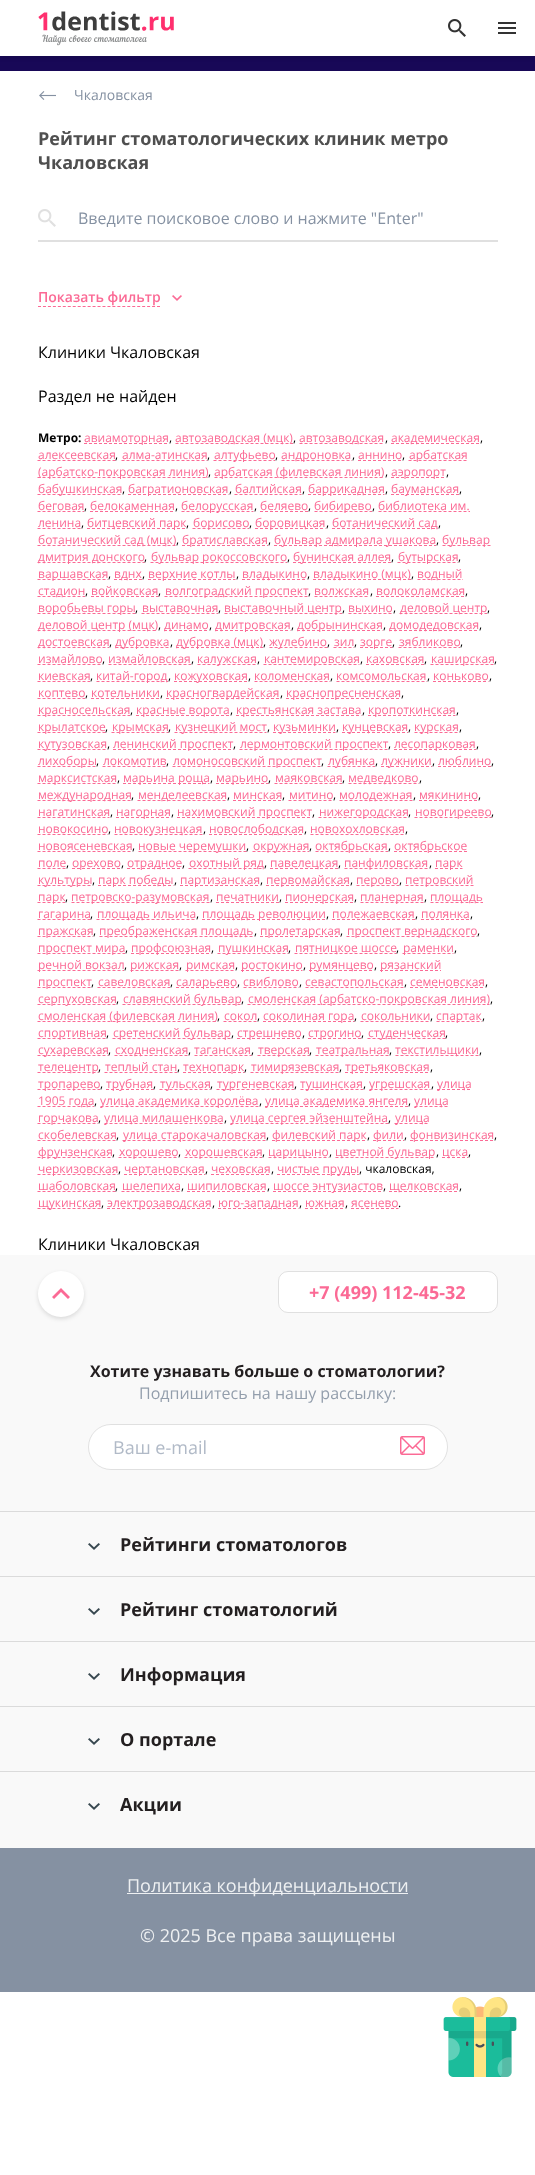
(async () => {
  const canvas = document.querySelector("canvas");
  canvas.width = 535;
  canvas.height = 2175;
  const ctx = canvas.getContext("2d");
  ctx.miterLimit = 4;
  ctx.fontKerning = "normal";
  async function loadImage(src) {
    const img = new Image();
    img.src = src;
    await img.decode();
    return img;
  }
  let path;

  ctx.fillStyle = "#ffffff";
  ctx.fillRect(0, 0, 535, 2175);
  ctx.fillStyle = "#180857";
  ctx.fillRect(0, 56, 535, 15);
  ctx.fillStyle = "rgba(0, 0, 0, 0.12)";
  ctx.filter = "blur(2px)";
  ctx.beginPath();
  ctx.rect(0, 2, 535, 56);
  ctx.fill();
  ctx.filter = "none";
  ctx.fillStyle = "#ffffff";
  ctx.fillRect(0, 0, 535, 56);
  ctx.drawImage(await loadImage("img/1.png"), 38, 11, 136, 35);
  ctx.drawImage(await loadImage("img/2.png"), 448, 19, 18, 18);
  for (const [x, y, w, h, color] of [
    [498, 27, 18, 2, "#333333"],
    [498, 22, 18, 2, "#333333"],
    [498, 32, 18, 2, "#333333"],
  ]) {
    ctx.fillStyle = color;
    ctx.fillRect(x, y, w, h);
  }
  ctx.drawImage(await loadImage("img/3.png"), 39, 91, 17, 9);
  ctx.drawImage(await loadImage("img/4.png"), 38, 209, 18, 18);
  ctx.fillStyle = "#e0e0e0";
  ctx.fillRect(38, 240, 460, 2);
  path = new Path2D("M38 306.5H160");
  ctx.strokeStyle = "#fb6a95";
  ctx.setLineDash([3, 1.96]);
  ctx.stroke(path);
  ctx.drawImage(await loadImage("img/5.png"), 172, 295, 10, 6);
  path = new Path2D("M84 443.5H169");
  ctx.setLineDash([3, 2]);
  ctx.stroke(path);
  path = new Path2D("M175.5 443.5H293");
  ctx.stroke(path);
  path = new Path2D("M299.5 443.5H384.5");
  ctx.stroke(path);
  path = new Path2D("M391 443.5H480");
  ctx.stroke(path);
  path = new Path2D("M37.5 460.5H115.5");
  ctx.stroke(path);
  path = new Path2D("M121.5 460.5H207.5");
  ctx.stroke(path);
  path = new Path2D("M213.5 460.5H275");
  ctx.stroke(path);
  path = new Path2D("M281.5 460.5H352");
  ctx.stroke(path);
  path = new Path2D("M358 460.5H402.5");
  ctx.stroke(path);
  path = new Path2D("M408.5 460.5H467");
  ctx.stroke(path);
  path = new Path2D("M37.5 477.5H208");
  ctx.stroke(path);
  path = new Path2D("M214.5 477.5H384.5");
  ctx.stroke(path);
  path = new Path2D("M391 477.5H446");
  ctx.stroke(path);
  path = new Path2D("M37.5 494.5H122");
  ctx.stroke(path);
  path = new Path2D("M128 494.5H228.5");
  ctx.stroke(path);
  path = new Path2D("M234.5 494.5H301.5");
  ctx.stroke(path);
  path = new Path2D("M308 494.5H384.5");
  ctx.stroke(path);
  path = new Path2D("M391 494.5H459");
  ctx.stroke(path);
  path = new Path2D("M37.5 511.5H84");
  ctx.stroke(path);
  path = new Path2D("M90 511.5H175");
  ctx.stroke(path);
  path = new Path2D("M181.5 511.5H253.5");
  ctx.stroke(path);
  path = new Path2D("M260 511.5H308");
  ctx.stroke(path);
  path = new Path2D("M314.5 511.5H372");
  ctx.stroke(path);
  path = new Path2D("M378.5 511.5H470");
  ctx.stroke(path);
  path = new Path2D("M37.5 528.5H80.5");
  ctx.stroke(path);
  path = new Path2D("M87 528.5H186.5");
  ctx.stroke(path);
  path = new Path2D("M192.5 528.5H249");
  ctx.stroke(path);
  path = new Path2D("M255 528.5H325.5");
  ctx.stroke(path);
  path = new Path2D("M332 528.5H437.5");
  ctx.stroke(path);
  path = new Path2D("M37.5 545.5H176");
  ctx.stroke(path);
  path = new Path2D("M182 545.5H268");
  ctx.stroke(path);
  path = new Path2D("M274 545.5H436");
  ctx.stroke(path);
  path = new Path2D("M442.5 545.5H490.5");
  ctx.stroke(path);
  path = new Path2D("M37.5 562.5H144.5");
  ctx.stroke(path);
  path = new Path2D("M150.5 562.5H287");
  ctx.stroke(path);
  path = new Path2D("M293 562.5H391.5");
  ctx.stroke(path);
  path = new Path2D("M397.5 562.5H458");
  ctx.stroke(path);
  path = new Path2D("M37.5 579.5H108");
  ctx.stroke(path);
  path = new Path2D("M114 579.5H142");
  ctx.stroke(path);
  path = new Path2D("M148 579.5H235.5");
  ctx.stroke(path);
  path = new Path2D("M242 579.5H307");
  ctx.stroke(path);
  path = new Path2D("M313 579.5H411");
  ctx.stroke(path);
  path = new Path2D("M417.5 579.5H463");
  ctx.stroke(path);
  path = new Path2D("M37.5 596.5H85");
  ctx.stroke(path);
  path = new Path2D("M91 596.5H158.5");
  ctx.stroke(path);
  path = new Path2D("M164.5 596.5H308");
  ctx.stroke(path);
  path = new Path2D("M314.5 596.5H369.5");
  ctx.stroke(path);
  path = new Path2D("M376 596.5H465");
  ctx.stroke(path);
  path = new Path2D("M37.5 613.5H135.5");
  ctx.stroke(path);
  path = new Path2D("M141.5 613.5H218");
  ctx.stroke(path);
  path = new Path2D("M224.5 613.5H342");
  ctx.stroke(path);
  path = new Path2D("M348.5 613.5H393.5");
  ctx.stroke(path);
  path = new Path2D("M399.5 613.5H487");
  ctx.stroke(path);
  path = new Path2D("M37.5 630.5H157.5");
  ctx.stroke(path);
  path = new Path2D("M164 630.5H208.5");
  ctx.stroke(path);
  path = new Path2D("M215 630.5H290.5");
  ctx.stroke(path);
  path = new Path2D("M297 630.5H382.5");
  ctx.stroke(path);
  path = new Path2D("M389 630.5H479");
  ctx.stroke(path);
  path = new Path2D("M37.5 647.5H109");
  ctx.stroke(path);
  path = new Path2D("M115.5 647.5H169.5");
  ctx.stroke(path);
  path = new Path2D("M176 647.5H263");
  ctx.stroke(path);
  path = new Path2D("M269.5 647.5H327.5");
  ctx.stroke(path);
  path = new Path2D("M333.5 647.5H354");
  ctx.stroke(path);
  path = new Path2D("M360 647.5H392.5");
  ctx.stroke(path);
  path = new Path2D("M398.5 647.5H460");
  ctx.stroke(path);
  path = new Path2D("M37.5 664.5H102");
  ctx.stroke(path);
  path = new Path2D("M108.5 664.5H191");
  ctx.stroke(path);
  path = new Path2D("M197.5 664.5H257.5");
  ctx.stroke(path);
  path = new Path2D("M263.5 664.5H359.5");
  ctx.stroke(path);
  path = new Path2D("M366 664.5H424.5");
  ctx.stroke(path);
  path = new Path2D("M430.5 664.5H494.5");
  ctx.stroke(path);
  path = new Path2D("M37.5 681.5H90");
  ctx.stroke(path);
  path = new Path2D("M96.5 681.5H168");
  ctx.stroke(path);
  path = new Path2D("M174 681.5H248");
  ctx.stroke(path);
  path = new Path2D("M254.5 681.5H330");
  ctx.stroke(path);
  path = new Path2D("M336.5 681.5H427");
  ctx.stroke(path);
  path = new Path2D("M433 681.5H488.5");
  ctx.stroke(path);
  path = new Path2D("M37.5 698.5H85");
  ctx.stroke(path);
  path = new Path2D("M91 698.5H160");
  ctx.stroke(path);
  path = new Path2D("M166 698.5H279.5");
  ctx.stroke(path);
  path = new Path2D("M286 698.5H401");
  ctx.stroke(path);
  path = new Path2D("M37.5 715.5H130");
  ctx.stroke(path);
  path = new Path2D("M136 715.5H230");
  ctx.stroke(path);
  path = new Path2D("M236 715.5H361.5");
  ctx.stroke(path);
  path = new Path2D("M368 715.5H455.5");
  ctx.stroke(path);
  path = new Path2D("M37.5 732.5H105.5");
  ctx.stroke(path);
  path = new Path2D("M111.5 732.5H168.5");
  ctx.stroke(path);
  path = new Path2D("M174.5 732.5H266.5");
  ctx.stroke(path);
  path = new Path2D("M273 732.5H335.5");
  ctx.stroke(path);
  path = new Path2D("M342 732.5H408");
  ctx.stroke(path);
  path = new Path2D("M414.5 732.5H459");
  ctx.stroke(path);
  path = new Path2D("M37.5 749.5H106.5");
  ctx.stroke(path);
  path = new Path2D("M113 749.5H233.5");
  ctx.stroke(path);
  path = new Path2D("M239.5 749.5H388");
  ctx.stroke(path);
  path = new Path2D("M394 749.5H476");
  ctx.stroke(path);
  path = new Path2D("M37.5 766.5H96.5");
  ctx.stroke(path);
  path = new Path2D("M102.5 766.5H166.5");
  ctx.stroke(path);
  path = new Path2D("M172.5 766.5H321.5");
  ctx.stroke(path);
  path = new Path2D("M327.5 766.5H375");
  ctx.stroke(path);
  path = new Path2D("M381 766.5H432");
  ctx.stroke(path);
  path = new Path2D("M438 766.5H491.5");
  ctx.stroke(path);
  path = new Path2D("M37.5 783.5H116.5");
  ctx.stroke(path);
  path = new Path2D("M123 783.5H209.5");
  ctx.stroke(path);
  path = new Path2D("M216 783.5H268.5");
  ctx.stroke(path);
  path = new Path2D("M274.5 783.5H342");
  ctx.stroke(path);
  path = new Path2D("M348.5 783.5H419");
  ctx.stroke(path);
  path = new Path2D("M37.5 800.5H131.5");
  ctx.stroke(path);
  path = new Path2D("M137.5 800.5H227");
  ctx.stroke(path);
  path = new Path2D("M233 800.5H282.5");
  ctx.stroke(path);
  path = new Path2D("M288.5 800.5H333");
  ctx.stroke(path);
  path = new Path2D("M339.5 800.5H413");
  ctx.stroke(path);
  path = new Path2D("M419 800.5H478.5");
  ctx.stroke(path);
  path = new Path2D("M37.5 817.5H109.5");
  ctx.stroke(path);
  path = new Path2D("M116 817.5H171");
  ctx.stroke(path);
  path = new Path2D("M177 817.5H312.5");
  ctx.stroke(path);
  path = new Path2D("M318.5 817.5H408.5");
  ctx.stroke(path);
  path = new Path2D("M414.5 817.5H491.5");
  ctx.stroke(path);
  path = new Path2D("M37.5 834.5H108");
  ctx.stroke(path);
  path = new Path2D("M114.5 834.5H202.5");
  ctx.stroke(path);
  path = new Path2D("M209 834.5H304");
  ctx.stroke(path);
  path = new Path2D("M310.5 834.5H405.5");
  ctx.stroke(path);
  path = new Path2D("M37.5 851.5H132");
  ctx.stroke(path);
  path = new Path2D("M138.5 851.5H246.5");
  ctx.stroke(path);
  path = new Path2D("M252.5 851.5H309");
  ctx.stroke(path);
  path = new Path2D("M315.5 851.5H388");
  ctx.stroke(path);
  path = new Path2D("M394 851.5H467.5");
  ctx.stroke(path);
  path = new Path2D("M37.5 868.5H66");
  ctx.stroke(path);
  path = new Path2D("M72 868.5H121");
  ctx.stroke(path);
  path = new Path2D("M127 868.5H182.5");
  ctx.stroke(path);
  path = new Path2D("M188.5 868.5H263.5");
  ctx.stroke(path);
  path = new Path2D("M270 868.5H338");
  ctx.stroke(path);
  path = new Path2D("M344.5 868.5H428.5");
  ctx.stroke(path);
  path = new Path2D("M435 868.5H462.5");
  ctx.stroke(path);
  path = new Path2D("M37.5 885.5H92");
  ctx.stroke(path);
  path = new Path2D("M98 885.5H173.5");
  ctx.stroke(path);
  path = new Path2D("M180 885.5H260");
  ctx.stroke(path);
  path = new Path2D("M266 885.5H350");
  ctx.stroke(path);
  path = new Path2D("M356.5 885.5H399");
  ctx.stroke(path);
  path = new Path2D("M405.5 885.5H474");
  ctx.stroke(path);
  path = new Path2D("M37.5 902.5H65");
  ctx.stroke(path);
  path = new Path2D("M71.5 902.5H209.5");
  ctx.stroke(path);
  path = new Path2D("M216 902.5H279");
  ctx.stroke(path);
  path = new Path2D("M285 902.5H354");
  ctx.stroke(path);
  path = new Path2D("M360.5 902.5H424");
  ctx.stroke(path);
  path = new Path2D("M430.5 902.5H483");
  ctx.stroke(path);
  path = new Path2D("M37.5 919.5H90.5");
  ctx.stroke(path);
  path = new Path2D("M96.5 919.5H196");
  ctx.stroke(path);
  path = new Path2D("M202 919.5H326");
  ctx.stroke(path);
  path = new Path2D("M332 919.5H415");
  ctx.stroke(path);
  path = new Path2D("M421 919.5H469.5");
  ctx.stroke(path);
  path = new Path2D("M37.5 936.5H93");
  ctx.stroke(path);
  path = new Path2D("M99.5 936.5H253.5");
  ctx.stroke(path);
  path = new Path2D("M260 936.5H340.5");
  ctx.stroke(path);
  path = new Path2D("M346.5 936.5H477");
  ctx.stroke(path);
  path = new Path2D("M37.5 953.5H125");
  ctx.stroke(path);
  path = new Path2D("M131 953.5H211.5");
  ctx.stroke(path);
  path = new Path2D("M217.5 953.5H288.5");
  ctx.stroke(path);
  path = new Path2D("M294.5 953.5H396.5");
  ctx.stroke(path);
  path = new Path2D("M402.5 953.5H453.5");
  ctx.stroke(path);
  path = new Path2D("M37.5 970.5H124");
  ctx.stroke(path);
  path = new Path2D("M130.5 970.5H179.5");
  ctx.stroke(path);
  path = new Path2D("M185.5 970.5H234.5");
  ctx.stroke(path);
  path = new Path2D("M241 970.5H302.5");
  ctx.stroke(path);
  path = new Path2D("M309 970.5H373.5");
  ctx.stroke(path);
  path = new Path2D("M380 970.5H441");
  ctx.stroke(path);
  path = new Path2D("M37.5 987.5H91.5");
  ctx.stroke(path);
  path = new Path2D("M97.5 987.5H170");
  ctx.stroke(path);
  path = new Path2D("M176 987.5H237");
  ctx.stroke(path);
  path = new Path2D("M243.5 987.5H299");
  ctx.stroke(path);
  path = new Path2D("M305.5 987.5H404");
  ctx.stroke(path);
  path = new Path2D("M410 987.5H485");
  ctx.stroke(path);
  path = new Path2D("M37.5 1004.5H116.5");
  ctx.stroke(path);
  path = new Path2D("M122.5 1004.5H241.5");
  ctx.stroke(path);
  path = new Path2D("M247.5 1004.5H489.5");
  ctx.stroke(path);
  path = new Path2D("M37.5 1021.5H217.5");
  ctx.stroke(path);
  path = new Path2D("M223.5 1021.5H257");
  ctx.stroke(path);
  path = new Path2D("M263 1021.5H354.5");
  ctx.stroke(path);
  path = new Path2D("M360.5 1021.5H430");
  ctx.stroke(path);
  path = new Path2D("M436.5 1021.5H482");
  ctx.stroke(path);
  path = new Path2D("M37.5 1038.5H106.5");
  ctx.stroke(path);
  path = new Path2D("M112.5 1038.5H230.5");
  ctx.stroke(path);
  path = new Path2D("M237 1038.5H301.5");
  ctx.stroke(path);
  path = new Path2D("M308 1038.5H361.5");
  ctx.stroke(path);
  path = new Path2D("M367.5 1038.5H445.5");
  ctx.stroke(path);
  path = new Path2D("M37.5 1055.5H108.5");
  ctx.stroke(path);
  path = new Path2D("M114.5 1055.5H188");
  ctx.stroke(path);
  path = new Path2D("M194.5 1055.5H251.5");
  ctx.stroke(path);
  path = new Path2D("M257.5 1055.5H309.5");
  ctx.stroke(path);
  path = new Path2D("M315.5 1055.5H389");
  ctx.stroke(path);
  path = new Path2D("M395.5 1055.5H479");
  ctx.stroke(path);
  path = new Path2D("M37.5 1072.5H98.5");
  ctx.stroke(path);
  path = new Path2D("M104.5 1072.5H177");
  ctx.stroke(path);
  path = new Path2D("M183 1072.5H244.5");
  ctx.stroke(path);
  path = new Path2D("M250.5 1072.5H339");
  ctx.stroke(path);
  path = new Path2D("M345 1072.5H430");
  ctx.stroke(path);
  path = new Path2D("M37.5 1089.5H100");
  ctx.stroke(path);
  path = new Path2D("M106 1089.5H153.5");
  ctx.stroke(path);
  path = new Path2D("M159.5 1089.5H210.5");
  ctx.stroke(path);
  path = new Path2D("M216.5 1089.5H294");
  ctx.stroke(path);
  path = new Path2D("M300.5 1089.5H363");
  ctx.stroke(path);
  path = new Path2D("M369.5 1089.5H430.5");
  ctx.stroke(path);
  path = new Path2D("M437 1089.5H471.5");
  ctx.stroke(path);
  path = new Path2D("M37.5 1106.5H94");
  ctx.stroke(path);
  path = new Path2D("M100.5 1106.5H259");
  ctx.stroke(path);
  path = new Path2D("M265 1106.5H408");
  ctx.stroke(path);
  path = new Path2D("M414.5 1106.5H449");
  ctx.stroke(path);
  path = new Path2D("M37.5 1123.5H98");
  ctx.stroke(path);
  path = new Path2D("M104.5 1123.5H224");
  ctx.stroke(path);
  path = new Path2D("M230.5 1123.5H388.5");
  ctx.stroke(path);
  path = new Path2D("M394.5 1123.5H429.5");
  ctx.stroke(path);
  path = new Path2D("M37.5 1140.5H116.5");
  ctx.stroke(path);
  path = new Path2D("M122.5 1140.5H266");
  ctx.stroke(path);
  path = new Path2D("M272 1140.5H367");
  ctx.stroke(path);
  path = new Path2D("M373 1140.5H404");
  ctx.stroke(path);
  path = new Path2D("M410 1140.5H494.5");
  ctx.stroke(path);
  path = new Path2D("M37.5 1157.5H112.5");
  ctx.stroke(path);
  path = new Path2D("M118.5 1157.5H178.5");
  ctx.stroke(path);
  path = new Path2D("M184.5 1157.5H262");
  ctx.stroke(path);
  path = new Path2D("M268.5 1157.5H329");
  ctx.stroke(path);
  path = new Path2D("M335.5 1157.5H435.5");
  ctx.stroke(path);
  path = new Path2D("M442 1157.5H468");
  ctx.stroke(path);
  path = new Path2D("M37.5 1174.5H118");
  ctx.stroke(path);
  path = new Path2D("M124 1174.5H205");
  ctx.stroke(path);
  path = new Path2D("M211 1174.5H270.5");
  ctx.stroke(path);
  path = new Path2D("M277 1174.5H359");
  ctx.stroke(path);
  path = new Path2D("M37.5 1191.5H115.5");
  ctx.stroke(path);
  path = new Path2D("M121.5 1191.5H180.5");
  ctx.stroke(path);
  path = new Path2D("M187 1191.5H266.5");
  ctx.stroke(path);
  path = new Path2D("M273 1191.5H383");
  ctx.stroke(path);
  path = new Path2D("M389 1191.5H459");
  ctx.stroke(path);
  path = new Path2D("M37.5 1208.5H101");
  ctx.stroke(path);
  path = new Path2D("M107 1208.5H212");
  ctx.stroke(path);
  path = new Path2D("M218 1208.5H298.5");
  ctx.stroke(path);
  path = new Path2D("M305 1208.5H344.5");
  ctx.stroke(path);
  path = new Path2D("M351 1208.5H398.5");
  ctx.stroke(path);
  ctx.fillStyle = "#f9f9f9";
  ctx.fillRect(0, 1255, 535, 593);
  ctx.fillStyle = "rgba(0, 0, 0, 0.12)";
  ctx.filter = "blur(2px)";
  ctx.beginPath();
  ctx.roundRect(38, 1273, 46, 46, 23);
  ctx.fill();
  ctx.filter = "none";
  ctx.fillStyle = "#ffffff";
  ctx.beginPath();
  ctx.arc(61, 1294, 23, 0, Math.PI * 2);
  ctx.fill();
  ctx.fillStyle = "#fb6a95";
  path = new Path2D("M68 1299L61 1292L54 1299L52 1297L61 1288L70 1297Z");
  ctx.fill(path);
  ctx.fillStyle = "#ffffff";
  ctx.beginPath();
  ctx.roundRect(278, 1271, 220, 42, 10);
  ctx.fill();
  ctx.beginPath();
  ctx.roundRect(278.5, 1271.5, 219, 41, 9.5);
  ctx.strokeStyle = "rgba(0, 0, 0, 0.12)";
  ctx.setLineDash([]);
  ctx.stroke();
  ctx.beginPath();
  ctx.roundRect(88, 1424, 360, 46, 23);
  ctx.fill();
  ctx.beginPath();
  ctx.roundRect(88.5, 1424.5, 359, 45, 22.5);
  ctx.stroke();
  ctx.drawImage(await loadImage("img/6.png"), 400, 1436, 25, 19);
  ctx.fillStyle = "#dbdbdb";
  ctx.fillRect(0, 1511, 535, 1);
  ctx.drawImage(await loadImage("img/7.png"), 88, 1543, 12, 7);
  ctx.fillRect(0, 1576, 535, 1);
  ctx.drawImage(await loadImage("img/7.png"), 88, 1608, 12, 7);
  ctx.fillRect(0, 1641, 535, 1);
  ctx.drawImage(await loadImage("img/7.png"), 88, 1673, 12, 7);
  ctx.fillRect(0, 1706, 535, 1);
  ctx.drawImage(await loadImage("img/7.png"), 88, 1738, 12, 7);
  ctx.fillRect(0, 1771, 535, 1);
  ctx.drawImage(await loadImage("img/7.png"), 88, 1803, 12, 7);
  ctx.fillStyle = "#8591a2";
  ctx.fillRect(0, 1848, 535, 144);
  ctx.fillStyle = "#eef0f2";
  ctx.fillRect(127, 1893, 281, 1);
  ctx.drawImage(await loadImage("img/8.png"), 443, 1997, 74, 80);
  ctx.font = "14px Open Sans";
  ctx.fillStyle = "#8591a2";
  ctx.fillText("Чкаловская", 74, 100);
  ctx.font = "bold 18px Open Sans";
  ctx.fillStyle = "#4f4f4f";
  ctx.fillText("Рейтинг стоматологических клиник метро", 38, 145);
  ctx.fillText("Чкаловская", 38, 169);
  ctx.font = "16px Open Sans";
  ctx.fillStyle = "#8591a2";
  ctx.fillText("Введите поисковое слово и нажмите \"Enter\"", 78, 224);
  ctx.font = "600 14px Open Sans";
  ctx.fillStyle = "#fb6a95";
  ctx.fillText("Показать фильтр", 38, 302);
  ctx.font = "16px Open Sans";
  ctx.fillStyle = "#000000";
  ctx.fillText("Клиники Чкаловская", 38, 358);
  ctx.fillText("Раздел не найден", 38, 402);
  ctx.font = "bold 12px Open Sans";
  ctx.fillText("Метро:", 38, 442);
  ctx.font = "12px Open Sans";
  ctx.fillStyle = "#fb6a95";
  ctx.fillText("авиамоторная", 84, 442);
  ctx.fillStyle = "#000000";
  ctx.fillText(",", 169, 442);
  ctx.fillStyle = "#fb6a95";
  ctx.fillText("автозаводская (мцк)", 175, 442);
  ctx.fillStyle = "#000000";
  ctx.fillText(",", 293, 442);
  ctx.fillStyle = "#fb6a95";
  ctx.fillText("автозаводская", 299, 442);
  ctx.fillStyle = "#000000";
  ctx.fillText(",", 385, 442);
  ctx.fillStyle = "#fb6a95";
  ctx.fillText("академическая", 391, 442);
  ctx.fillStyle = "#000000";
  ctx.fillText(",", 480, 442);
  ctx.fillStyle = "#fb6a95";
  ctx.fillText("алексеевская", 38, 459);
  ctx.fillStyle = "#000000";
  ctx.fillText(",", 115, 459);
  ctx.fillStyle = "#fb6a95";
  ctx.fillText("алма-атинская", 122, 459);
  ctx.fillStyle = "#000000";
  ctx.fillText(",", 207, 459);
  ctx.fillStyle = "#fb6a95";
  ctx.fillText("алтуфьево", 214, 459);
  ctx.fillStyle = "#000000";
  ctx.fillText(",", 275, 459);
  ctx.fillStyle = "#fb6a95";
  ctx.fillText("андроновка", 281, 459);
  ctx.fillStyle = "#000000";
  ctx.fillText(",", 352, 459);
  ctx.fillStyle = "#fb6a95";
  ctx.fillText("аннино", 358, 459);
  ctx.fillStyle = "#000000";
  ctx.fillText(",", 402, 459);
  ctx.fillStyle = "#fb6a95";
  ctx.fillText("арбатская", 409, 459);
  ctx.fillText("(арбатско-покровская линия)", 38, 476);
  ctx.fillStyle = "#000000";
  ctx.fillText(",", 208, 476);
  ctx.fillStyle = "#fb6a95";
  ctx.fillText("арбатская (филевская линия)", 214, 476);
  ctx.fillStyle = "#000000";
  ctx.fillText(",", 385, 476);
  ctx.fillStyle = "#fb6a95";
  ctx.fillText("аэропорт", 391, 476);
  ctx.fillStyle = "#000000";
  ctx.fillText(",", 446, 476);
  ctx.fillStyle = "#fb6a95";
  ctx.fillText("бабушкинская", 38, 493);
  ctx.fillStyle = "#000000";
  ctx.fillText(",", 122, 493);
  ctx.fillStyle = "#fb6a95";
  ctx.fillText("багратионовская", 128, 493);
  ctx.fillStyle = "#000000";
  ctx.fillText(",", 229, 493);
  ctx.fillStyle = "#fb6a95";
  ctx.fillText("балтийская", 235, 493);
  ctx.fillStyle = "#000000";
  ctx.fillText(",", 302, 493);
  ctx.fillStyle = "#fb6a95";
  ctx.fillText("баррикадная", 308, 493);
  ctx.fillStyle = "#000000";
  ctx.fillText(",", 385, 493);
  ctx.fillStyle = "#fb6a95";
  ctx.fillText("бауманская", 391, 493);
  ctx.fillStyle = "#000000";
  ctx.fillText(",", 459, 493);
  ctx.fillStyle = "#fb6a95";
  ctx.fillText("беговая", 38, 510);
  ctx.fillStyle = "#000000";
  ctx.fillText(",", 84, 510);
  ctx.fillStyle = "#fb6a95";
  ctx.fillText("белокаменная", 90, 510);
  ctx.fillStyle = "#000000";
  ctx.fillText(",", 175, 510);
  ctx.fillStyle = "#fb6a95";
  ctx.fillText("белорусская", 181, 510);
  ctx.fillStyle = "#000000";
  ctx.fillText(",", 254, 510);
  ctx.fillStyle = "#fb6a95";
  ctx.fillText("беляево", 260, 510);
  ctx.fillStyle = "#000000";
  ctx.fillText(",", 308, 510);
  ctx.fillStyle = "#fb6a95";
  ctx.fillText("бибирево", 314, 510);
  ctx.fillStyle = "#000000";
  ctx.fillText(",", 372, 510);
  ctx.fillStyle = "#fb6a95";
  ctx.fillText("библиотека им.", 378, 510);
  ctx.fillText("ленина", 38, 527);
  ctx.fillStyle = "#000000";
  ctx.fillText(",", 81, 527);
  ctx.fillStyle = "#fb6a95";
  ctx.fillText("битцевский парк", 87, 527);
  ctx.fillStyle = "#000000";
  ctx.fillText(",", 186, 527);
  ctx.fillStyle = "#fb6a95";
  ctx.fillText("борисово", 193, 527);
  ctx.fillStyle = "#000000";
  ctx.fillText(",", 249, 527);
  ctx.fillStyle = "#fb6a95";
  ctx.fillText("боровицкая", 255, 527);
  ctx.fillStyle = "#000000";
  ctx.fillText(",", 326, 527);
  ctx.fillStyle = "#fb6a95";
  ctx.fillText("ботанический сад", 332, 527);
  ctx.fillStyle = "#000000";
  ctx.fillText(",", 438, 527);
  ctx.fillStyle = "#fb6a95";
  ctx.fillText("ботанический сад (мцк)", 38, 544);
  ctx.fillStyle = "#000000";
  ctx.fillText(",", 176, 544);
  ctx.fillStyle = "#fb6a95";
  ctx.fillText("братиславская", 182, 544);
  ctx.fillStyle = "#000000";
  ctx.fillText(",", 268, 544);
  ctx.fillStyle = "#fb6a95";
  ctx.fillText("бульвар адмирала ушакова", 274, 544);
  ctx.fillStyle = "#000000";
  ctx.fillText(",", 436, 544);
  ctx.fillStyle = "#fb6a95";
  ctx.fillText("бульвар", 442, 544);
  ctx.fillText("дмитрия донского", 38, 561);
  ctx.fillStyle = "#000000";
  ctx.fillText(",", 144, 561);
  ctx.fillStyle = "#fb6a95";
  ctx.fillText("бульвар рокоссовского", 151, 561);
  ctx.fillStyle = "#000000";
  ctx.fillText(",", 287, 561);
  ctx.fillStyle = "#fb6a95";
  ctx.fillText("бунинская аллея", 293, 561);
  ctx.fillStyle = "#000000";
  ctx.fillText(",", 391, 561);
  ctx.fillStyle = "#fb6a95";
  ctx.fillText("бутырская", 398, 561);
  ctx.fillStyle = "#000000";
  ctx.fillText(",", 458, 561);
  ctx.fillStyle = "#fb6a95";
  ctx.fillText("варшавская", 38, 578);
  ctx.fillStyle = "#000000";
  ctx.fillText(",", 108, 578);
  ctx.fillStyle = "#fb6a95";
  ctx.fillText("вднх", 114, 578);
  ctx.fillStyle = "#000000";
  ctx.fillText(",", 142, 578);
  ctx.fillStyle = "#fb6a95";
  ctx.fillText("верхние котлы", 148, 578);
  ctx.fillStyle = "#000000";
  ctx.fillText(",", 236, 578);
  ctx.fillStyle = "#fb6a95";
  ctx.fillText("владыкино", 242, 578);
  ctx.fillStyle = "#000000";
  ctx.fillText(",", 307, 578);
  ctx.fillStyle = "#fb6a95";
  ctx.fillText("владыкино (мцк)", 313, 578);
  ctx.fillStyle = "#000000";
  ctx.fillText(",", 411, 578);
  ctx.fillStyle = "#fb6a95";
  ctx.fillText("водный", 417, 578);
  ctx.fillText("стадион", 38, 595);
  ctx.fillStyle = "#000000";
  ctx.fillText(",", 85, 595);
  ctx.fillStyle = "#fb6a95";
  ctx.fillText("войковская", 91, 595);
  ctx.fillStyle = "#000000";
  ctx.fillText(",", 158, 595);
  ctx.fillStyle = "#fb6a95";
  ctx.fillText("волгоградский проспект", 165, 595);
  ctx.fillStyle = "#000000";
  ctx.fillText(",", 308, 595);
  ctx.fillStyle = "#fb6a95";
  ctx.fillText("волжская", 314, 595);
  ctx.fillStyle = "#000000";
  ctx.fillText(",", 370, 595);
  ctx.fillStyle = "#fb6a95";
  ctx.fillText("волоколамская", 376, 595);
  ctx.fillStyle = "#000000";
  ctx.fillText(",", 465, 595);
  ctx.fillStyle = "#fb6a95";
  ctx.fillText("воробьевы горы", 38, 612);
  ctx.fillStyle = "#000000";
  ctx.fillText(",", 135, 612);
  ctx.fillStyle = "#fb6a95";
  ctx.fillText("выставочная", 142, 612);
  ctx.fillStyle = "#000000";
  ctx.fillText(",", 218, 612);
  ctx.fillStyle = "#fb6a95";
  ctx.fillText("выставочный центр", 224, 612);
  ctx.fillStyle = "#000000";
  ctx.fillText(",", 342, 612);
  ctx.fillStyle = "#fb6a95";
  ctx.fillText("выхино", 348, 612);
  ctx.fillStyle = "#000000";
  ctx.fillText(",", 393, 612);
  ctx.fillStyle = "#fb6a95";
  ctx.fillText("деловой центр", 400, 612);
  ctx.fillStyle = "#000000";
  ctx.fillText(",", 487, 612);
  ctx.fillStyle = "#fb6a95";
  ctx.fillText("деловой центр (мцк)", 38, 629);
  ctx.fillStyle = "#000000";
  ctx.fillText(",", 158, 629);
  ctx.fillStyle = "#fb6a95";
  ctx.fillText("динамо", 164, 629);
  ctx.fillStyle = "#000000";
  ctx.fillText(",", 209, 629);
  ctx.fillStyle = "#fb6a95";
  ctx.fillText("дмитровская", 215, 629);
  ctx.fillStyle = "#000000";
  ctx.fillText(",", 291, 629);
  ctx.fillStyle = "#fb6a95";
  ctx.fillText("добрынинская", 297, 629);
  ctx.fillStyle = "#000000";
  ctx.fillText(",", 383, 629);
  ctx.fillStyle = "#fb6a95";
  ctx.fillText("домодедовская", 389, 629);
  ctx.fillStyle = "#000000";
  ctx.fillText(",", 479, 629);
  ctx.fillStyle = "#fb6a95";
  ctx.fillText("достоевская", 38, 646);
  ctx.fillStyle = "#000000";
  ctx.fillText(",", 109, 646);
  ctx.fillStyle = "#fb6a95";
  ctx.fillText("дубровка", 115, 646);
  ctx.fillStyle = "#000000";
  ctx.fillText(",", 170, 646);
  ctx.fillStyle = "#fb6a95";
  ctx.fillText("дубровка (мцк)", 176, 646);
  ctx.fillStyle = "#000000";
  ctx.fillText(",", 263, 646);
  ctx.fillStyle = "#fb6a95";
  ctx.fillText("жулебино", 269, 646);
  ctx.fillStyle = "#000000";
  ctx.fillText(",", 327, 646);
  ctx.fillStyle = "#fb6a95";
  ctx.fillText("зил", 334, 646);
  ctx.fillStyle = "#000000";
  ctx.fillText(",", 354, 646);
  ctx.fillStyle = "#fb6a95";
  ctx.fillText("зорге", 360, 646);
  ctx.fillStyle = "#000000";
  ctx.fillText(",", 392, 646);
  ctx.fillStyle = "#fb6a95";
  ctx.fillText("зябликово", 399, 646);
  ctx.fillStyle = "#000000";
  ctx.fillText(",", 460, 646);
  ctx.fillStyle = "#fb6a95";
  ctx.fillText("измайлово", 38, 663);
  ctx.fillStyle = "#000000";
  ctx.fillText(",", 102, 663);
  ctx.fillStyle = "#fb6a95";
  ctx.fillText("измайловская", 108, 663);
  ctx.fillStyle = "#000000";
  ctx.fillText(",", 191, 663);
  ctx.fillStyle = "#fb6a95";
  ctx.fillText("калужская", 197, 663);
  ctx.fillStyle = "#000000";
  ctx.fillText(",", 257, 663);
  ctx.fillStyle = "#fb6a95";
  ctx.fillText("кантемировская", 264, 663);
  ctx.fillStyle = "#000000";
  ctx.fillText(",", 360, 663);
  ctx.fillStyle = "#fb6a95";
  ctx.fillText("каховская", 366, 663);
  ctx.fillStyle = "#000000";
  ctx.fillText(",", 424, 663);
  ctx.fillStyle = "#fb6a95";
  ctx.fillText("каширская", 431, 663);
  ctx.fillStyle = "#000000";
  ctx.fillText(",", 494, 663);
  ctx.fillStyle = "#fb6a95";
  ctx.fillText("киевская", 38, 680);
  ctx.fillStyle = "#000000";
  ctx.fillText(",", 90, 680);
  ctx.fillStyle = "#fb6a95";
  ctx.fillText("китай-город", 96, 680);
  ctx.fillStyle = "#000000";
  ctx.fillText(",", 168, 680);
  ctx.fillStyle = "#fb6a95";
  ctx.fillText("кожуховская", 174, 680);
  ctx.fillStyle = "#000000";
  ctx.fillText(",", 248, 680);
  ctx.fillStyle = "#fb6a95";
  ctx.fillText("коломенская", 254, 680);
  ctx.fillStyle = "#000000";
  ctx.fillText(",", 330, 680);
  ctx.fillStyle = "#fb6a95";
  ctx.fillText("комсомольская", 336, 680);
  ctx.fillStyle = "#000000";
  ctx.fillText(",", 427, 680);
  ctx.fillStyle = "#fb6a95";
  ctx.fillText("коньково", 433, 680);
  ctx.fillStyle = "#000000";
  ctx.fillText(",", 489, 680);
  ctx.fillStyle = "#fb6a95";
  ctx.fillText("коптево", 38, 697);
  ctx.fillStyle = "#000000";
  ctx.fillText(",", 85, 697);
  ctx.fillStyle = "#fb6a95";
  ctx.fillText("котельники", 91, 697);
  ctx.fillStyle = "#000000";
  ctx.fillText(",", 160, 697);
  ctx.fillStyle = "#fb6a95";
  ctx.fillText("красногвардейская", 166, 697);
  ctx.fillStyle = "#000000";
  ctx.fillText(",", 280, 697);
  ctx.fillStyle = "#fb6a95";
  ctx.fillText("краснопресненская", 286, 697);
  ctx.fillStyle = "#000000";
  ctx.fillText(",", 401, 697);
  ctx.fillStyle = "#fb6a95";
  ctx.fillText("красносельская", 38, 714);
  ctx.fillStyle = "#000000";
  ctx.fillText(",", 130, 714);
  ctx.fillStyle = "#fb6a95";
  ctx.fillText("красные ворота", 136, 714);
  ctx.fillStyle = "#000000";
  ctx.fillText(",", 230, 714);
  ctx.fillStyle = "#fb6a95";
  ctx.fillText("крестьянская застава", 236, 714);
  ctx.fillStyle = "#000000";
  ctx.fillText(",", 362, 714);
  ctx.fillStyle = "#fb6a95";
  ctx.fillText("кропоткинская", 368, 714);
  ctx.fillStyle = "#000000";
  ctx.fillText(",", 456, 714);
  ctx.fillStyle = "#fb6a95";
  ctx.fillText("крылатское", 38, 731);
  ctx.fillStyle = "#000000";
  ctx.fillText(",", 105, 731);
  ctx.fillStyle = "#fb6a95";
  ctx.fillText("крымская", 112, 731);
  ctx.fillStyle = "#000000";
  ctx.fillText(",", 168, 731);
  ctx.fillStyle = "#fb6a95";
  ctx.fillText("кузнецкий мост", 175, 731);
  ctx.fillStyle = "#000000";
  ctx.fillText(",", 267, 731);
  ctx.fillStyle = "#fb6a95";
  ctx.fillText("кузьминки", 273, 731);
  ctx.fillStyle = "#000000";
  ctx.fillText(",", 336, 731);
  ctx.fillStyle = "#fb6a95";
  ctx.fillText("кунцевская", 342, 731);
  ctx.fillStyle = "#000000";
  ctx.fillText(",", 408, 731);
  ctx.fillStyle = "#fb6a95";
  ctx.fillText("курская", 414, 731);
  ctx.fillStyle = "#000000";
  ctx.fillText(",", 459, 731);
  ctx.fillStyle = "#fb6a95";
  ctx.fillText("кутузовская", 38, 748);
  ctx.fillStyle = "#000000";
  ctx.fillText(",", 107, 748);
  ctx.fillStyle = "#fb6a95";
  ctx.fillText("ленинский проспект", 113, 748);
  ctx.fillStyle = "#000000";
  ctx.fillText(",", 233, 748);
  ctx.fillStyle = "#fb6a95";
  ctx.fillText("лермонтовский проспект", 240, 748);
  ctx.fillStyle = "#000000";
  ctx.fillText(",", 388, 748);
  ctx.fillStyle = "#fb6a95";
  ctx.fillText("лесопарковая", 394, 748);
  ctx.fillStyle = "#000000";
  ctx.fillText(",", 476, 748);
  ctx.fillStyle = "#fb6a95";
  ctx.fillText("лихоборы", 38, 765);
  ctx.fillStyle = "#000000";
  ctx.fillText(",", 96, 765);
  ctx.fillStyle = "#fb6a95";
  ctx.fillText("локомотив", 103, 765);
  ctx.fillStyle = "#000000";
  ctx.fillText(",", 166, 765);
  ctx.fillStyle = "#fb6a95";
  ctx.fillText("ломоносовский проспект", 173, 765);
  ctx.fillStyle = "#000000";
  ctx.fillText(",", 321, 765);
  ctx.fillStyle = "#fb6a95";
  ctx.fillText("лубянка", 328, 765);
  ctx.fillStyle = "#000000";
  ctx.fillText(",", 375, 765);
  ctx.fillStyle = "#fb6a95";
  ctx.fillText("лужники", 381, 765);
  ctx.fillStyle = "#000000";
  ctx.fillText(",", 432, 765);
  ctx.fillStyle = "#fb6a95";
  ctx.fillText("люблино", 438, 765);
  ctx.fillStyle = "#000000";
  ctx.fillText(",", 491, 765);
  ctx.fillStyle = "#fb6a95";
  ctx.fillText("марксистская", 38, 782);
  ctx.fillStyle = "#000000";
  ctx.fillText(",", 117, 782);
  ctx.fillStyle = "#fb6a95";
  ctx.fillText("марьина роща", 123, 782);
  ctx.fillStyle = "#000000";
  ctx.fillText(",", 210, 782);
  ctx.fillStyle = "#fb6a95";
  ctx.fillText("марьино", 216, 782);
  ctx.fillStyle = "#000000";
  ctx.fillText(",", 268, 782);
  ctx.fillStyle = "#fb6a95";
  ctx.fillText("маяковская", 275, 782);
  ctx.fillStyle = "#000000";
  ctx.fillText(",", 342, 782);
  ctx.fillStyle = "#fb6a95";
  ctx.fillText("медведково", 348, 782);
  ctx.fillStyle = "#000000";
  ctx.fillText(",", 419, 782);
  ctx.fillStyle = "#fb6a95";
  ctx.fillText("международная", 38, 799);
  ctx.fillStyle = "#000000";
  ctx.fillText(",", 131, 799);
  ctx.fillStyle = "#fb6a95";
  ctx.fillText("менделеевская", 138, 799);
  ctx.fillStyle = "#000000";
  ctx.fillText(",", 227, 799);
  ctx.fillStyle = "#fb6a95";
  ctx.fillText("минская", 233, 799);
  ctx.fillStyle = "#000000";
  ctx.fillText(",", 282, 799);
  ctx.fillStyle = "#fb6a95";
  ctx.fillText("митино", 289, 799);
  ctx.fillStyle = "#000000";
  ctx.fillText(",", 333, 799);
  ctx.fillStyle = "#fb6a95";
  ctx.fillText("молодежная", 339, 799);
  ctx.fillStyle = "#000000";
  ctx.fillText(",", 413, 799);
  ctx.fillStyle = "#fb6a95";
  ctx.fillText("мякинино", 419, 799);
  ctx.fillStyle = "#000000";
  ctx.fillText(",", 478, 799);
  ctx.fillStyle = "#fb6a95";
  ctx.fillText("нагатинская", 38, 816);
  ctx.fillStyle = "#000000";
  ctx.fillText(",", 110, 816);
  ctx.fillStyle = "#fb6a95";
  ctx.fillText("нагорная", 116, 816);
  ctx.fillStyle = "#000000";
  ctx.fillText(",", 171, 816);
  ctx.fillStyle = "#fb6a95";
  ctx.fillText("нахимовский проспект", 177, 816);
  ctx.fillStyle = "#000000";
  ctx.fillText(",", 312, 816);
  ctx.fillStyle = "#fb6a95";
  ctx.fillText("нижегородская", 319, 816);
  ctx.fillStyle = "#000000";
  ctx.fillText(",", 408, 816);
  ctx.fillStyle = "#fb6a95";
  ctx.fillText("новогиреево", 415, 816);
  ctx.fillStyle = "#000000";
  ctx.fillText(",", 491, 816);
  ctx.fillStyle = "#fb6a95";
  ctx.fillText("новокосино", 38, 833);
  ctx.fillStyle = "#000000";
  ctx.fillText(",", 108, 833);
  ctx.fillStyle = "#fb6a95";
  ctx.fillText("новокузнецкая", 114, 833);
  ctx.fillStyle = "#000000";
  ctx.fillText(",", 203, 833);
  ctx.fillStyle = "#fb6a95";
  ctx.fillText("новослободская", 209, 833);
  ctx.fillStyle = "#000000";
  ctx.fillText(",", 304, 833);
  ctx.fillStyle = "#fb6a95";
  ctx.fillText("новохохловская", 310, 833);
  ctx.fillStyle = "#000000";
  ctx.fillText(",", 405, 833);
  ctx.fillStyle = "#fb6a95";
  ctx.fillText("новоясеневская", 38, 850);
  ctx.fillStyle = "#000000";
  ctx.fillText(",", 132, 850);
  ctx.fillStyle = "#fb6a95";
  ctx.fillText("новые черемушки", 138, 850);
  ctx.fillStyle = "#000000";
  ctx.fillText(",", 246, 850);
  ctx.fillStyle = "#fb6a95";
  ctx.fillText("окружная", 253, 850);
  ctx.fillStyle = "#000000";
  ctx.fillText(",", 309, 850);
  ctx.fillStyle = "#fb6a95";
  ctx.fillText("октябрьская", 315, 850);
  ctx.fillStyle = "#000000";
  ctx.fillText(",", 388, 850);
  ctx.fillStyle = "#fb6a95";
  ctx.fillText("октябрьское", 394, 850);
  ctx.fillText("поле", 38, 867);
  ctx.fillStyle = "#000000";
  ctx.fillText(",", 66, 867);
  ctx.fillStyle = "#fb6a95";
  ctx.fillText("орехово", 72, 867);
  ctx.fillStyle = "#000000";
  ctx.fillText(",", 121, 867);
  ctx.fillStyle = "#fb6a95";
  ctx.fillText("отрадное", 127, 867);
  ctx.fillStyle = "#000000";
  ctx.fillText(",", 182, 867);
  ctx.fillStyle = "#fb6a95";
  ctx.fillText("охотный ряд", 189, 867);
  ctx.fillStyle = "#000000";
  ctx.fillText(",", 264, 867);
  ctx.fillStyle = "#fb6a95";
  ctx.fillText("павелецкая", 270, 867);
  ctx.fillStyle = "#000000";
  ctx.fillText(",", 338, 867);
  ctx.fillStyle = "#fb6a95";
  ctx.fillText("панфиловская", 344, 867);
  ctx.fillStyle = "#000000";
  ctx.fillText(",", 429, 867);
  ctx.fillStyle = "#fb6a95";
  ctx.fillText("парк", 435, 867);
  ctx.fillText("культуры", 38, 884);
  ctx.fillStyle = "#000000";
  ctx.fillText(",", 92, 884);
  ctx.fillStyle = "#fb6a95";
  ctx.fillText("парк победы", 98, 884);
  ctx.fillStyle = "#000000";
  ctx.fillText(",", 174, 884);
  ctx.fillStyle = "#fb6a95";
  ctx.fillText("партизанская", 180, 884);
  ctx.fillStyle = "#000000";
  ctx.fillText(",", 260, 884);
  ctx.fillStyle = "#fb6a95";
  ctx.fillText("первомайская", 266, 884);
  ctx.fillStyle = "#000000";
  ctx.fillText(",", 350, 884);
  ctx.fillStyle = "#fb6a95";
  ctx.fillText("перово", 356, 884);
  ctx.fillStyle = "#000000";
  ctx.fillText(",", 399, 884);
  ctx.fillStyle = "#fb6a95";
  ctx.fillText("петровский", 405, 884);
  ctx.fillText("парк", 38, 901);
  ctx.fillStyle = "#000000";
  ctx.fillText(",", 65, 901);
  ctx.fillStyle = "#fb6a95";
  ctx.fillText("петровско-разумовская", 71, 901);
  ctx.fillStyle = "#000000";
  ctx.fillText(",", 210, 901);
  ctx.fillStyle = "#fb6a95";
  ctx.fillText("печатники", 216, 901);
  ctx.fillStyle = "#000000";
  ctx.fillText(",", 279, 901);
  ctx.fillStyle = "#fb6a95";
  ctx.fillText("пионерская", 285, 901);
  ctx.fillStyle = "#000000";
  ctx.fillText(",", 354, 901);
  ctx.fillStyle = "#fb6a95";
  ctx.fillText("планерная", 360, 901);
  ctx.fillStyle = "#000000";
  ctx.fillText(",", 424, 901);
  ctx.fillStyle = "#fb6a95";
  ctx.fillText("площадь", 430, 901);
  ctx.fillText("гагарина", 38, 918);
  ctx.fillStyle = "#000000";
  ctx.fillText(",", 90, 918);
  ctx.fillStyle = "#fb6a95";
  ctx.fillText("площадь ильича", 97, 918);
  ctx.fillStyle = "#000000";
  ctx.fillText(",", 196, 918);
  ctx.fillStyle = "#fb6a95";
  ctx.fillText("площадь революции", 202, 918);
  ctx.fillStyle = "#000000";
  ctx.fillText(",", 326, 918);
  ctx.fillStyle = "#fb6a95";
  ctx.fillText("полежаевская", 332, 918);
  ctx.fillStyle = "#000000";
  ctx.fillText(",", 415, 918);
  ctx.fillStyle = "#fb6a95";
  ctx.fillText("полянка", 421, 918);
  ctx.fillStyle = "#000000";
  ctx.fillText(",", 470, 918);
  ctx.fillStyle = "#fb6a95";
  ctx.fillText("пражская", 38, 935);
  ctx.fillStyle = "#000000";
  ctx.fillText(",", 93, 935);
  ctx.fillStyle = "#fb6a95";
  ctx.fillText("преображенская площадь", 99, 935);
  ctx.fillStyle = "#000000";
  ctx.fillText(",", 254, 935);
  ctx.fillStyle = "#fb6a95";
  ctx.fillText("пролетарская", 260, 935);
  ctx.fillStyle = "#000000";
  ctx.fillText(",", 340, 935);
  ctx.fillStyle = "#fb6a95";
  ctx.fillText("проспект вернадского", 347, 935);
  ctx.fillStyle = "#000000";
  ctx.fillText(",", 477, 935);
  ctx.fillStyle = "#fb6a95";
  ctx.fillText("проспект мира", 38, 952);
  ctx.fillStyle = "#000000";
  ctx.fillText(",", 125, 952);
  ctx.fillStyle = "#fb6a95";
  ctx.fillText("профсоюзная", 131, 952);
  ctx.fillStyle = "#000000";
  ctx.fillText(",", 211, 952);
  ctx.fillStyle = "#fb6a95";
  ctx.fillText("пушкинская", 218, 952);
  ctx.fillStyle = "#000000";
  ctx.fillText(",", 288, 952);
  ctx.fillStyle = "#fb6a95";
  ctx.fillText("пятницкое шоссе", 295, 952);
  ctx.fillStyle = "#000000";
  ctx.fillText(",", 396, 952);
  ctx.fillStyle = "#fb6a95";
  ctx.fillText("раменки", 403, 952);
  ctx.fillStyle = "#000000";
  ctx.fillText(",", 454, 952);
  ctx.fillStyle = "#fb6a95";
  ctx.fillText("речной вокзал", 38, 969);
  ctx.fillStyle = "#000000";
  ctx.fillText(",", 124, 969);
  ctx.fillStyle = "#fb6a95";
  ctx.fillText("рижская", 130, 969);
  ctx.fillStyle = "#000000";
  ctx.fillText(",", 179, 969);
  ctx.fillStyle = "#fb6a95";
  ctx.fillText("римская", 186, 969);
  ctx.fillStyle = "#000000";
  ctx.fillText(",", 235, 969);
  ctx.fillStyle = "#fb6a95";
  ctx.fillText("ростокино", 241, 969);
  ctx.fillStyle = "#000000";
  ctx.fillText(",", 303, 969);
  ctx.fillStyle = "#fb6a95";
  ctx.fillText("румянцево", 309, 969);
  ctx.fillStyle = "#000000";
  ctx.fillText(",", 374, 969);
  ctx.fillStyle = "#fb6a95";
  ctx.fillText("рязанский", 380, 969);
  ctx.fillText("проспект", 38, 986);
  ctx.fillStyle = "#000000";
  ctx.fillText(",", 91, 986);
  ctx.fillStyle = "#fb6a95";
  ctx.fillText("савеловская", 98, 986);
  ctx.fillStyle = "#000000";
  ctx.fillText(",", 170, 986);
  ctx.fillStyle = "#fb6a95";
  ctx.fillText("саларьево", 176, 986);
  ctx.fillStyle = "#000000";
  ctx.fillText(",", 237, 986);
  ctx.fillStyle = "#fb6a95";
  ctx.fillText("свиблово", 243, 986);
  ctx.fillStyle = "#000000";
  ctx.fillText(",", 299, 986);
  ctx.fillStyle = "#fb6a95";
  ctx.fillText("севастопольская", 305, 986);
  ctx.fillStyle = "#000000";
  ctx.fillText(",", 404, 986);
  ctx.fillStyle = "#fb6a95";
  ctx.fillText("семеновская", 410, 986);
  ctx.fillStyle = "#000000";
  ctx.fillText(",", 485, 986);
  ctx.fillStyle = "#fb6a95";
  ctx.fillText("серпуховская", 38, 1003);
  ctx.fillStyle = "#000000";
  ctx.fillText(",", 116, 1003);
  ctx.fillStyle = "#fb6a95";
  ctx.fillText("славянский бульвар", 123, 1003);
  ctx.fillStyle = "#000000";
  ctx.fillText(",", 241, 1003);
  ctx.fillStyle = "#fb6a95";
  ctx.fillText("смоленская (арбатско-покровская линия)", 248, 1003);
  ctx.fillStyle = "#000000";
  ctx.fillText(",", 490, 1003);
  ctx.fillStyle = "#fb6a95";
  ctx.fillText("смоленская (филевская линия)", 38, 1020);
  ctx.fillStyle = "#000000";
  ctx.fillText(",", 217, 1020);
  ctx.fillStyle = "#fb6a95";
  ctx.fillText("сокол", 224, 1020);
  ctx.fillStyle = "#000000";
  ctx.fillText(",", 257, 1020);
  ctx.fillStyle = "#fb6a95";
  ctx.fillText("соколиная гора", 263, 1020);
  ctx.fillStyle = "#000000";
  ctx.fillText(",", 354, 1020);
  ctx.fillStyle = "#fb6a95";
  ctx.fillText("сокольники", 361, 1020);
  ctx.fillStyle = "#000000";
  ctx.fillText(",", 430, 1020);
  ctx.fillStyle = "#fb6a95";
  ctx.fillText("спартак", 436, 1020);
  ctx.fillStyle = "#000000";
  ctx.fillText(",", 482, 1020);
  ctx.fillStyle = "#fb6a95";
  ctx.fillText("спортивная", 38, 1037);
  ctx.fillStyle = "#000000";
  ctx.fillText(",", 106, 1037);
  ctx.fillStyle = "#fb6a95";
  ctx.fillText("сретенский бульвар", 113, 1037);
  ctx.fillStyle = "#000000";
  ctx.fillText(",", 231, 1037);
  ctx.fillStyle = "#fb6a95";
  ctx.fillText("стрешнево", 237, 1037);
  ctx.fillStyle = "#000000";
  ctx.fillText(",", 302, 1037);
  ctx.fillStyle = "#fb6a95";
  ctx.fillText("строгино", 308, 1037);
  ctx.fillStyle = "#000000";
  ctx.fillText(",", 361, 1037);
  ctx.fillStyle = "#fb6a95";
  ctx.fillText("студенческая", 368, 1037);
  ctx.fillStyle = "#000000";
  ctx.fillText(",", 445, 1037);
  ctx.fillStyle = "#fb6a95";
  ctx.fillText("сухаревская", 38, 1054);
  ctx.fillStyle = "#000000";
  ctx.fillText(",", 108, 1054);
  ctx.fillStyle = "#fb6a95";
  ctx.fillText("сходненская", 115, 1054);
  ctx.fillStyle = "#000000";
  ctx.fillText(",", 188, 1054);
  ctx.fillStyle = "#fb6a95";
  ctx.fillText("таганская", 194, 1054);
  ctx.fillStyle = "#000000";
  ctx.fillText(",", 251, 1054);
  ctx.fillStyle = "#fb6a95";
  ctx.fillText("тверская", 258, 1054);
  ctx.fillStyle = "#000000";
  ctx.fillText(",", 309, 1054);
  ctx.fillStyle = "#fb6a95";
  ctx.fillText("театральная", 316, 1054);
  ctx.fillStyle = "#000000";
  ctx.fillText(",", 389, 1054);
  ctx.fillStyle = "#fb6a95";
  ctx.fillText("текстильщики", 395, 1054);
  ctx.fillStyle = "#000000";
  ctx.fillText(",", 479, 1054);
  ctx.fillStyle = "#fb6a95";
  ctx.fillText("телецентр", 38, 1071);
  ctx.fillStyle = "#000000";
  ctx.fillText(",", 98, 1071);
  ctx.fillStyle = "#fb6a95";
  ctx.fillText("теплый стан", 105, 1071);
  ctx.fillStyle = "#000000";
  ctx.fillText(",", 177, 1071);
  ctx.fillStyle = "#fb6a95";
  ctx.fillText("технопарк", 183, 1071);
  ctx.fillStyle = "#000000";
  ctx.fillText(",", 244, 1071);
  ctx.fillStyle = "#fb6a95";
  ctx.fillText("тимирязевская", 251, 1071);
  ctx.fillStyle = "#000000";
  ctx.fillText(",", 339, 1071);
  ctx.fillStyle = "#fb6a95";
  ctx.fillText("третьяковская", 345, 1071);
  ctx.fillStyle = "#000000";
  ctx.fillText(",", 430, 1071);
  ctx.fillStyle = "#fb6a95";
  ctx.fillText("тропарево", 38, 1088);
  ctx.fillStyle = "#000000";
  ctx.fillText(",", 100, 1088);
  ctx.fillStyle = "#fb6a95";
  ctx.fillText("трубная", 106, 1088);
  ctx.fillStyle = "#000000";
  ctx.fillText(",", 153, 1088);
  ctx.fillStyle = "#fb6a95";
  ctx.fillText("тульская", 160, 1088);
  ctx.fillStyle = "#000000";
  ctx.fillText(",", 210, 1088);
  ctx.fillStyle = "#fb6a95";
  ctx.fillText("тургеневская", 217, 1088);
  ctx.fillStyle = "#000000";
  ctx.fillText(",", 294, 1088);
  ctx.fillStyle = "#fb6a95";
  ctx.fillText("тушинская", 300, 1088);
  ctx.fillStyle = "#000000";
  ctx.fillText(",", 363, 1088);
  ctx.fillStyle = "#fb6a95";
  ctx.fillText("угрешская", 369, 1088);
  ctx.fillStyle = "#000000";
  ctx.fillText(",", 431, 1088);
  ctx.fillStyle = "#fb6a95";
  ctx.fillText("улица", 437, 1088);
  ctx.fillText("1905 года", 38, 1105);
  ctx.fillStyle = "#000000";
  ctx.fillText(",", 94, 1105);
  ctx.fillStyle = "#fb6a95";
  ctx.fillText("улица академика королёва", 100, 1105);
  ctx.fillStyle = "#000000";
  ctx.fillText(",", 259, 1105);
  ctx.fillStyle = "#fb6a95";
  ctx.fillText("улица академика янгеля", 265, 1105);
  ctx.fillStyle = "#000000";
  ctx.fillText(",", 408, 1105);
  ctx.fillStyle = "#fb6a95";
  ctx.fillText("улица", 414, 1105);
  ctx.fillText("горчакова", 38, 1122);
  ctx.fillStyle = "#000000";
  ctx.fillText(",", 98, 1122);
  ctx.fillStyle = "#fb6a95";
  ctx.fillText("улица милашенкова", 104, 1122);
  ctx.fillStyle = "#000000";
  ctx.fillText(",", 224, 1122);
  ctx.fillStyle = "#fb6a95";
  ctx.fillText("улица сергея эйзенштейна", 230, 1122);
  ctx.fillStyle = "#000000";
  ctx.fillText(",", 388, 1122);
  ctx.fillStyle = "#fb6a95";
  ctx.fillText("улица", 395, 1122);
  ctx.fillText("скобелевская", 38, 1139);
  ctx.fillStyle = "#000000";
  ctx.fillText(",", 116, 1139);
  ctx.fillStyle = "#fb6a95";
  ctx.fillText("улица старокачаловская", 123, 1139);
  ctx.fillStyle = "#000000";
  ctx.fillText(",", 266, 1139);
  ctx.fillStyle = "#fb6a95";
  ctx.fillText("филевский парк", 272, 1139);
  ctx.fillStyle = "#000000";
  ctx.fillText(",", 367, 1139);
  ctx.fillStyle = "#fb6a95";
  ctx.fillText("фили", 373, 1139);
  ctx.fillStyle = "#000000";
  ctx.fillText(",", 404, 1139);
  ctx.fillStyle = "#fb6a95";
  ctx.fillText("фонвизинская", 410, 1139);
  ctx.fillStyle = "#000000";
  ctx.fillText(",", 494, 1139);
  ctx.fillStyle = "#fb6a95";
  ctx.fillText("фрунзенская", 38, 1156);
  ctx.fillStyle = "#000000";
  ctx.fillText(",", 112, 1156);
  ctx.fillStyle = "#fb6a95";
  ctx.fillText("хорошево", 119, 1156);
  ctx.fillStyle = "#000000";
  ctx.fillText(",", 178, 1156);
  ctx.fillStyle = "#fb6a95";
  ctx.fillText("хорошевская", 185, 1156);
  ctx.fillStyle = "#000000";
  ctx.fillText(",", 262, 1156);
  ctx.fillStyle = "#fb6a95";
  ctx.fillText("царицыно", 268, 1156);
  ctx.fillStyle = "#000000";
  ctx.fillText(",", 329, 1156);
  ctx.fillStyle = "#fb6a95";
  ctx.fillText("цветной бульвар", 335, 1156);
  ctx.fillStyle = "#000000";
  ctx.fillText(",", 436, 1156);
  ctx.fillStyle = "#fb6a95";
  ctx.fillText("цска", 442, 1156);
  ctx.fillStyle = "#000000";
  ctx.fillText(",", 468, 1156);
  ctx.fillStyle = "#fb6a95";
  ctx.fillText("черкизовская", 38, 1173);
  ctx.fillStyle = "#000000";
  ctx.fillText(",", 118, 1173);
  ctx.fillStyle = "#fb6a95";
  ctx.fillText("чертановская", 124, 1173);
  ctx.fillStyle = "#000000";
  ctx.fillText(",", 205, 1173);
  ctx.fillStyle = "#fb6a95";
  ctx.fillText("чеховская", 211, 1173);
  ctx.fillStyle = "#000000";
  ctx.fillText(",", 271, 1173);
  ctx.fillStyle = "#fb6a95";
  ctx.fillText("чистые пруды", 277, 1173);
  ctx.fillStyle = "#000000";
  ctx.fillText(", чкаловская,", 359, 1173);
  ctx.fillStyle = "#fb6a95";
  ctx.fillText("шаболовская", 38, 1190);
  ctx.fillStyle = "#000000";
  ctx.fillText(",", 115, 1190);
  ctx.fillStyle = "#fb6a95";
  ctx.fillText("шелепиха", 122, 1190);
  ctx.fillStyle = "#000000";
  ctx.fillText(",", 181, 1190);
  ctx.fillStyle = "#fb6a95";
  ctx.fillText("шипиловская", 187, 1190);
  ctx.fillStyle = "#000000";
  ctx.fillText(",", 267, 1190);
  ctx.fillStyle = "#fb6a95";
  ctx.fillText("шоссе энтузиастов", 273, 1190);
  ctx.fillStyle = "#000000";
  ctx.fillText(",", 383, 1190);
  ctx.fillStyle = "#fb6a95";
  ctx.fillText("щелковская", 389, 1190);
  ctx.fillStyle = "#000000";
  ctx.fillText(",", 459, 1190);
  ctx.fillStyle = "#fb6a95";
  ctx.fillText("щукинская", 38, 1207);
  ctx.fillStyle = "#000000";
  ctx.fillText(",", 101, 1207);
  ctx.fillStyle = "#fb6a95";
  ctx.fillText("электрозаводская", 107, 1207);
  ctx.fillStyle = "#000000";
  ctx.fillText(",", 212, 1207);
  ctx.fillStyle = "#fb6a95";
  ctx.fillText("юго-западная", 218, 1207);
  ctx.fillStyle = "#000000";
  ctx.fillText(",", 299, 1207);
  ctx.fillStyle = "#fb6a95";
  ctx.fillText("южная", 305, 1207);
  ctx.fillStyle = "#000000";
  ctx.fillText(",", 345, 1207);
  ctx.fillStyle = "#fb6a95";
  ctx.fillText("ясенево", 351, 1207);
  ctx.fillStyle = "#000000";
  ctx.fillText(".", 398, 1207);
  ctx.font = "16px Open Sans";
  ctx.fillText("Клиники Чкаловская", 38, 1250);
  ctx.font = "bold 18px Open Sans";
  ctx.fillStyle = "#fb6a95";
  ctx.fillText("+7 (499) 112-45-32", 309, 1299);
  ctx.font = "bold 16px Open Sans";
  ctx.fillStyle = "#231f20";
  ctx.fillText("Хотите узнавать больше о стоматологии?", 90, 1377);
  ctx.font = "16px Open Sans";
  ctx.fillStyle = "#939eac";
  ctx.fillText("Подпишитесь на нашу рассылку:", 139, 1399);
  ctx.font = "18px Open Sans";
  ctx.fillStyle = "#b1bac7";
  ctx.fillText("Ваш e-mail", 113, 1454);
  ctx.font = "bold 18px Open Sans";
  ctx.fillStyle = "#231f20";
  for (const [text, x, y] of [
    ["Рейтинги стоматологов", 120, 1551],
    ["Рейтинг стоматологий", 120, 1616],
    ["Информация", 120, 1681],
    ["О портале", 120, 1746],
    ["Акции", 120, 1811],
  ]) {
    ctx.fillText(text, x, y);
  }
  ctx.font = "18px Open Sans";
  ctx.fillStyle = "#eef0f2";
  ctx.fillText("Политика конфиденциальности", 127, 1892);
  ctx.fillText("© 2025 Все права защищены", 140, 1942);
})();
